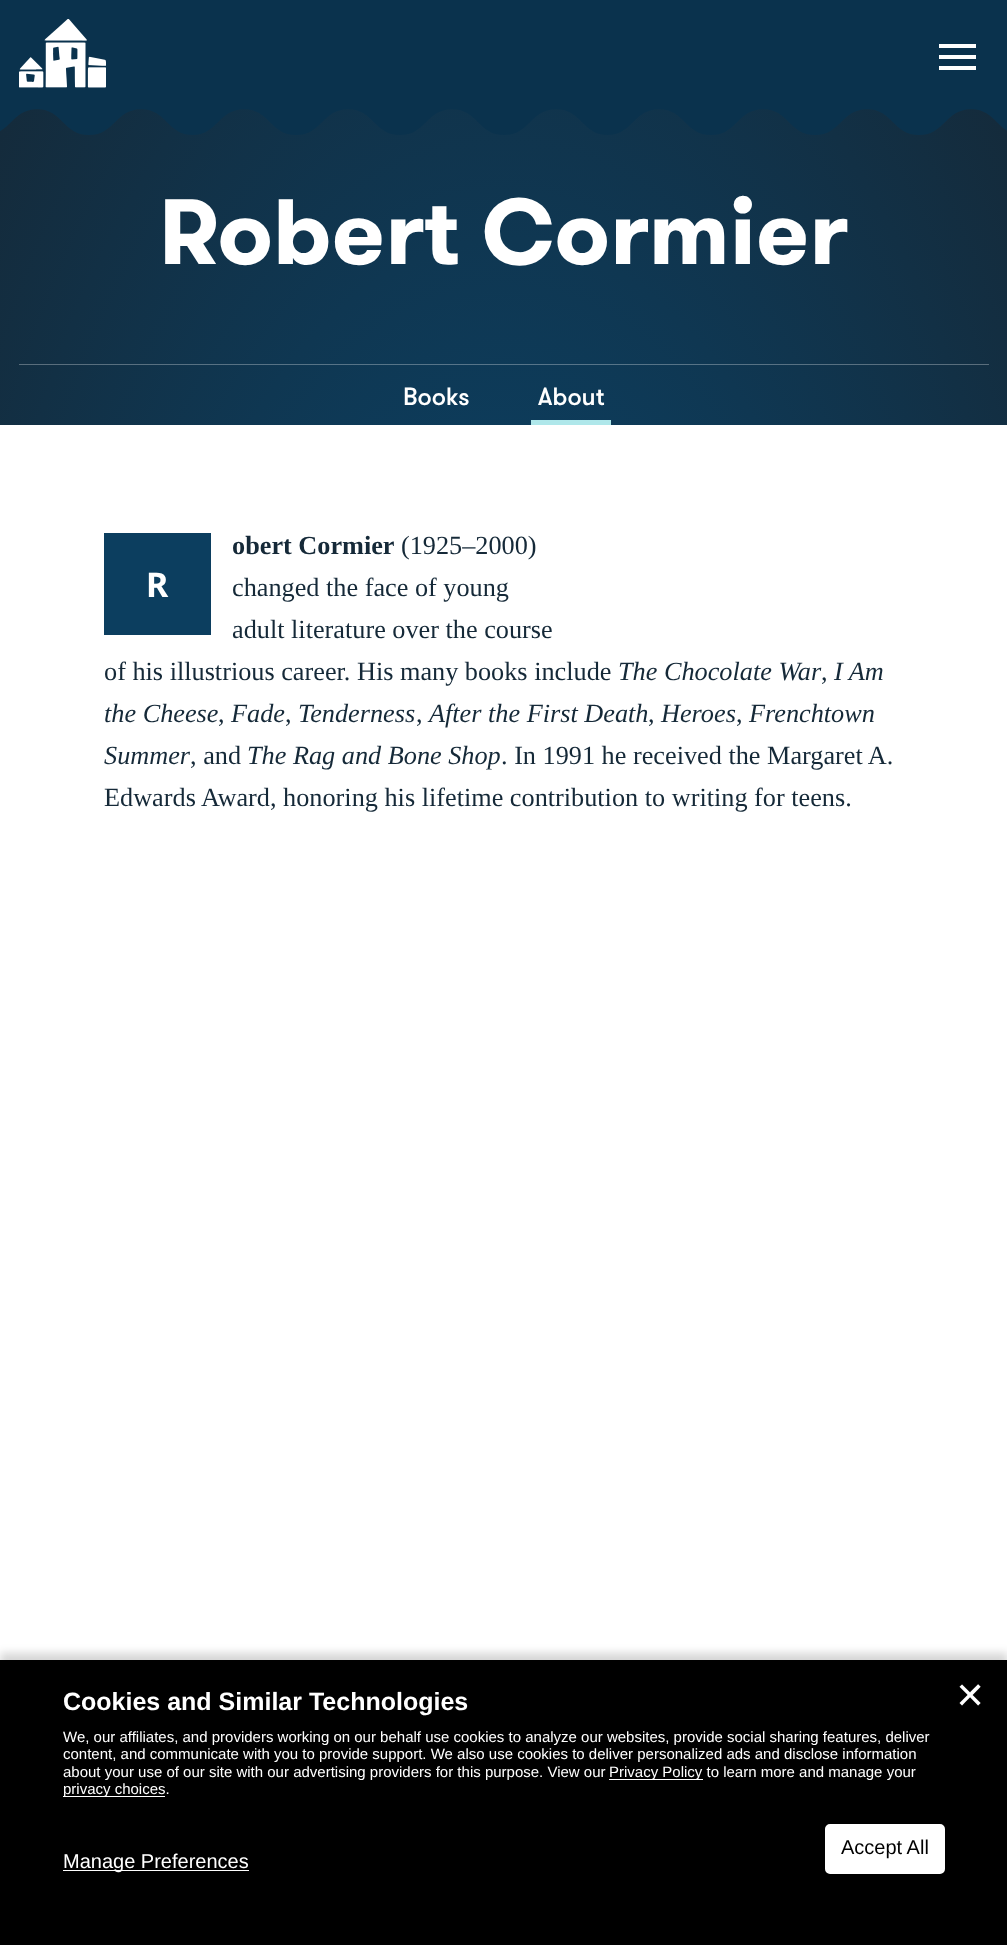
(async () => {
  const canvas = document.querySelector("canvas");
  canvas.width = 1007;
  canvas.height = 1945;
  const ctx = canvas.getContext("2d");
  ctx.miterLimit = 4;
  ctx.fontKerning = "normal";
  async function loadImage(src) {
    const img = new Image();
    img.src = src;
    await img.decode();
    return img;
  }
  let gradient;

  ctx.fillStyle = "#ffffff";
  ctx.fillRect(0, 0, 1007, 1945);
  ctx.fillStyle = "#0a324d";
  ctx.fillRect(0, 0, 1007, 106);
  ctx.drawImage(await loadImage("img/1.png"), 19, 19, 87, 69);
  for (const [x, y, w, h, color] of [
    [939, 55, 37, 4, "#ffffff"],
    [939, 44, 37, 4, "#ffffff"],
    [939, 66, 37, 4, "#ffffff"],
  ]) {
    ctx.fillStyle = color;
    ctx.fillRect(x, y, w, h);
  }
  gradient = ctx.createRadialGradient(504, 503.84, 0, 504, 503.84, 712);
  gradient.addColorStop(0.3, "#0c3e5f");
  gradient.addColorStop(1, "#152938");
  ctx.fillStyle = gradient;
  ctx.beginPath();
  ctx.rect(0, 109, 1007, 316);
  ctx.save();
  ctx.clip();
  ctx.scale(1, 1375 / 712);
  ctx.fillRect(0, 0, 1007, 1008);
  ctx.restore();
  ctx.drawImage(await loadImage("img/2.png"), 0, 106, 1007, 29);
  gradient = ctx.createRadialGradient(504, 503.84, 0, 504, 503.84, 712);
  gradient.addColorStop(0.3, "#55788f");
  gradient.addColorStop(1, "#5b6974");
  ctx.fillStyle = gradient;
  ctx.beginPath();
  ctx.rect(19, 364, 970, 1);
  ctx.save();
  ctx.clip();
  ctx.scale(1, 1375 / 712);
  ctx.fillRect(0, 0, 1007, 1008);
  ctx.restore();
  ctx.fillStyle = "#afe7ea";
  ctx.fillRect(531, 420, 80, 5);
  ctx.fillStyle = "#0c3e5f";
  ctx.fillRect(104, 533, 107, 102);
  ctx.fillStyle = "rgba(0, 0, 0, 0.16)";
  ctx.filter = "blur(4px)";
  ctx.beginPath();
  ctx.rect(0, 1653, 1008, 285);
  ctx.fill();
  ctx.filter = "none";
  for (const [x, y, w, h, color] of [
    [0, 1660, 1007, 285, "#000000"],
    [609, 1779, 94, 1, "#ffffff"],
    [63, 1796, 102, 1, "#ffffff"],
  ]) {
    ctx.fillStyle = color;
    ctx.fillRect(x, y, w, h);
  }
  ctx.beginPath();
  ctx.roundRect(826.5, 1825.5, 117, 47, 3.5);
  ctx.fill();
  ctx.strokeStyle = "#ffffff";
  ctx.lineWidth = 3;
  ctx.stroke();
  ctx.fillRect(63, 1870, 186, 1);
  ctx.font = "bold 92.5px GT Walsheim";
  ctx.fillText("Robert Cormier", 159, 264);
  ctx.font = "500 25px GT Walsheim";
  ctx.fillText("Books", 403, 405);
  ctx.fillText("About", 538, 405);
  ctx.font = "bold 26.25px Liberation Serif";
  ctx.fillStyle = "#152938";
  ctx.fillText("obert Cormier", 232, 554);
  ctx.font = "26.25px Liberation Serif";
  ctx.fillText("(1925–2000)", 401, 554);
  ctx.font = "bold 34px Noto Sans";
  ctx.fillStyle = "#ffffff";
  ctx.fillText("R", 146, 597);
  ctx.font = "26.25px Liberation Serif";
  ctx.fillStyle = "#152938";
  for (const [text, x, y] of [
    ["changed the face of young", 232, 596],
    ["adult literature over the course", 232, 638],
    ["of his illustrious career. His many books include", 104, 680],
  ]) {
    ctx.fillText(text, x, y);
  }
  ctx.font = "italic 26.25px Liberation Serif";
  ctx.fillText("The Chocolate War", 618, 680);
  ctx.font = "26.25px Liberation Serif";
  ctx.fillText(",", 821, 680);
  ctx.font = "italic 26.25px Liberation Serif";
  ctx.fillText("I Am", 834, 680);
  ctx.fillText("the Cheese", 104, 722);
  ctx.font = "26.25px Liberation Serif";
  ctx.fillText(",", 218, 722);
  ctx.font = "italic 26.25px Liberation Serif";
  ctx.fillText("Fade", 231, 722);
  ctx.font = "26.25px Liberation Serif";
  ctx.fillText(",", 285, 722);
  ctx.font = "italic 26.25px Liberation Serif";
  ctx.fillText("Tenderness", 298, 722);
  ctx.font = "26.25px Liberation Serif";
  ctx.fillText(",", 416, 722);
  ctx.font = "italic 26.25px Liberation Serif";
  ctx.fillText("After the First Death", 429, 722);
  ctx.font = "26.25px Liberation Serif";
  ctx.fillText(",", 648, 722);
  ctx.font = "italic 26.25px Liberation Serif";
  ctx.fillText("Heroes", 661, 722);
  ctx.font = "26.25px Liberation Serif";
  ctx.fillText(",", 736, 722);
  ctx.font = "italic 26.25px Liberation Serif";
  ctx.fillText("Frenchtown", 749, 722);
  ctx.fillText("Summer", 104, 764);
  ctx.font = "26.25px Liberation Serif";
  ctx.fillText(", and", 190, 764);
  ctx.font = "italic 26.25px Liberation Serif";
  ctx.fillText("The Rag and Bone Shop", 247, 764);
  ctx.font = "26.25px Liberation Serif";
  ctx.fillText(". In 1991 he received the Margaret A.", 501, 764);
  ctx.fillText("Edwards Award, honoring his lifetime contribution to writing for teens.", 104, 806);
  ctx.font = "bold 25px Liberation Sans";
  ctx.fillStyle = "#ffffff";
  ctx.fillText("Cookies and Similar Technologies", 63, 1710);
  ctx.font = "15px Liberation Sans";
  for (const [text, x, y] of [
    ["We, our affiliates, and providers working on our behalf use cookies to analyze our websites, provide social sharing features, deliver", 63, 1742],
    ["content, and communicate with you to provide support. We also use cookies to deliver personalized ads and disclose information", 63, 1759],
    ["about your use of our site with our advertising providers for this purpose. View our", 63, 1777],
    ["Privacy Policy to learn more and manage your", 609, 1777],
    ["privacy choices.", 63, 1794],
  ]) {
    ctx.fillText(text, x, y);
  }
  ctx.font = "36px DejaVu Sans";
  ctx.fillText("✕", 955, 1708);
  ctx.font = "20px Liberation Sans";
  ctx.fillStyle = "#000000";
  ctx.fillText("Accept All", 841, 1854);
  ctx.fillStyle = "#ffffff";
  ctx.fillText("Manage Preferences", 63, 1868);
})();
